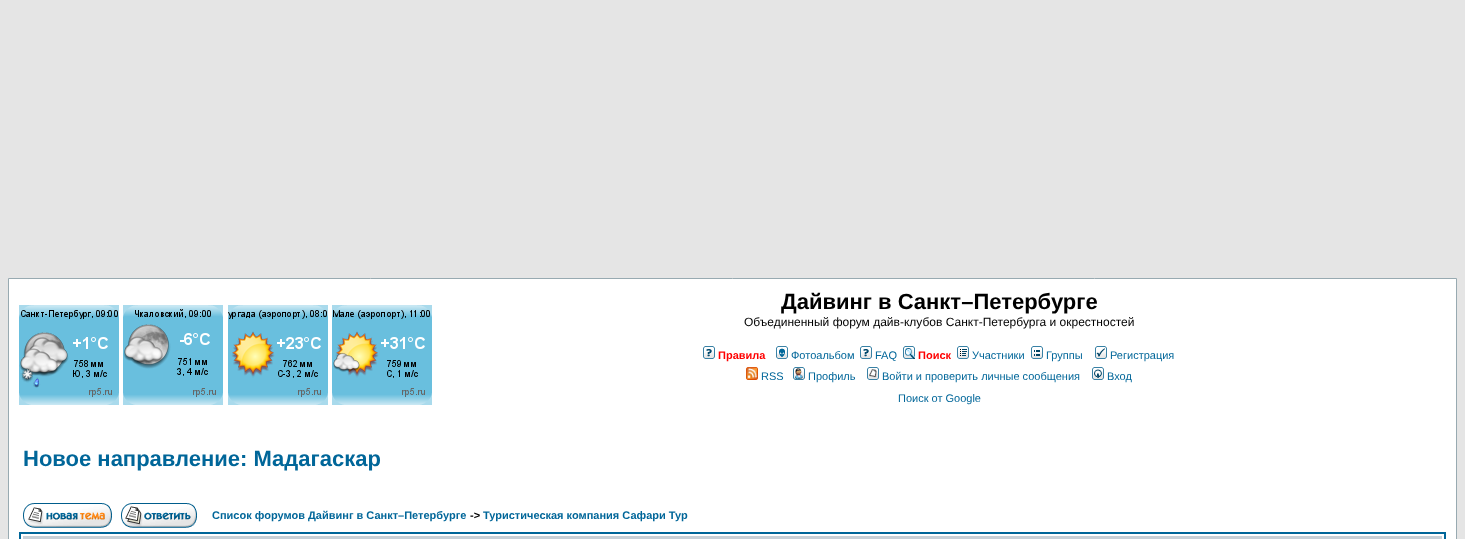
(async () => {
  const canvas = document.querySelector("canvas");
  canvas.width = 1465;
  canvas.height = 539;
  const ctx = canvas.getContext("2d");
  ctx.miterLimit = 4;
  ctx.fontKerning = "normal";
  async function loadImage(src) {
    const img = new Image();
    img.src = src;
    await img.decode();
    return img;
  }

  ctx.fillStyle = "#e5e5e5";
  ctx.fillRect(0, 0, 1465, 539);
  ctx.fillStyle = "#ffffff";
  ctx.beginPath();
  ctx.rect(8.5, 278.5, 1448, 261);
  ctx.fill();
  ctx.strokeStyle = "#98aab1";
  ctx.stroke();
  ctx.drawImage(await loadImage("img/1.png"), 19, 305, 100, 100);
  ctx.drawImage(await loadImage("img/2.png"), 123, 305, 100, 100);
  ctx.drawImage(await loadImage("img/3.png"), 228, 305, 100, 100);
  ctx.drawImage(await loadImage("img/4.png"), 332, 305, 100, 100);
  ctx.drawImage(await loadImage("img/5.png"), 703, 346, 12, 13);
  ctx.drawImage(await loadImage("img/6.png"), 776, 346, 12, 13);
  ctx.drawImage(await loadImage("img/5.png"), 860, 346, 12, 13);
  ctx.drawImage(await loadImage("img/7.png"), 903, 346, 12, 13);
  ctx.drawImage(await loadImage("img/8.png"), 957, 346, 12, 13);
  ctx.drawImage(await loadImage("img/9.png"), 1031, 346, 12, 13);
  ctx.drawImage(await loadImage("img/10.png"), 1095, 346, 12, 13);
  ctx.drawImage(await loadImage("img/11.png"), 746, 367, 12, 13);
  ctx.drawImage(await loadImage("img/12.png"), 793, 367, 12, 13);
  ctx.drawImage(await loadImage("img/13.png"), 867, 367, 12, 13);
  ctx.drawImage(await loadImage("img/14.png"), 1092, 367, 12, 13);
  ctx.drawImage(await loadImage("img/15.png"), 23, 503, 89, 25);
  ctx.drawImage(await loadImage("img/16.png"), 121, 503, 76, 25);
  ctx.strokeStyle = "#006699";
  ctx.lineWidth = 2;
  ctx.strokeRect(20, 533, 1425, 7);
  for (const [x, y, w, h, color] of [
    [22, 536, 1421, 3, "#c7d0d7"],
    [1442, 535, 1, 4, "#ffffff"],
    [22, 535, 1, 4, "#ffffff"],
  ]) {
    ctx.fillStyle = color;
    ctx.fillRect(x, y, w, h);
  }
  ctx.font = "bold 22px Liberation Sans";
  ctx.fillStyle = "#000000";
  ctx.fillText("Дайвинг в Санкт–Петербурге", 781, 309);
  ctx.font = "12px Liberation Sans";
  ctx.fillText("Объединенный форум дайв-клубов Санкт-Петербурга и окрестностей", 744, 326);
  ctx.font = "bold 11px Liberation Sans";
  ctx.fillStyle = "#ff0000";
  ctx.fillText("Правила", 718, 359);
  ctx.font = "11px Liberation Sans";
  ctx.fillStyle = "#006699";
  ctx.fillText("Фотоальбом", 791, 359);
  ctx.fillText("FAQ", 875, 359);
  ctx.font = "bold 11px Liberation Sans";
  ctx.fillStyle = "#ff0000";
  ctx.fillText("Поиск", 918, 359);
  ctx.font = "11px Liberation Sans";
  ctx.fillStyle = "#006699";
  for (const [text, x, y] of [
    ["Участники", 972, 359],
    ["Группы", 1046, 359],
    ["Регистрация", 1110, 359],
    ["RSS", 761, 380],
    ["Профиль", 808, 380],
    ["Войти и проверить личные сообщения", 882, 380],
    ["Вход", 1107, 380],
    ["Поиск от Google", 898, 402],
  ]) {
    ctx.fillText(text, x, y);
  }
  ctx.font = "bold 22px Liberation Sans";
  ctx.fillText("Новое направление: Мадагаскар", 23, 466);
  ctx.font = "bold 11px Liberation Sans";
  ctx.fillText("Список форумов Дайвинг в Санкт–Петербурге", 212, 519);
  ctx.fillStyle = "#000000";
  ctx.fillText("->", 470, 519);
  ctx.fillStyle = "#006699";
  ctx.fillText("Туристическая компания Сафари Тур", 483, 519);
})();
